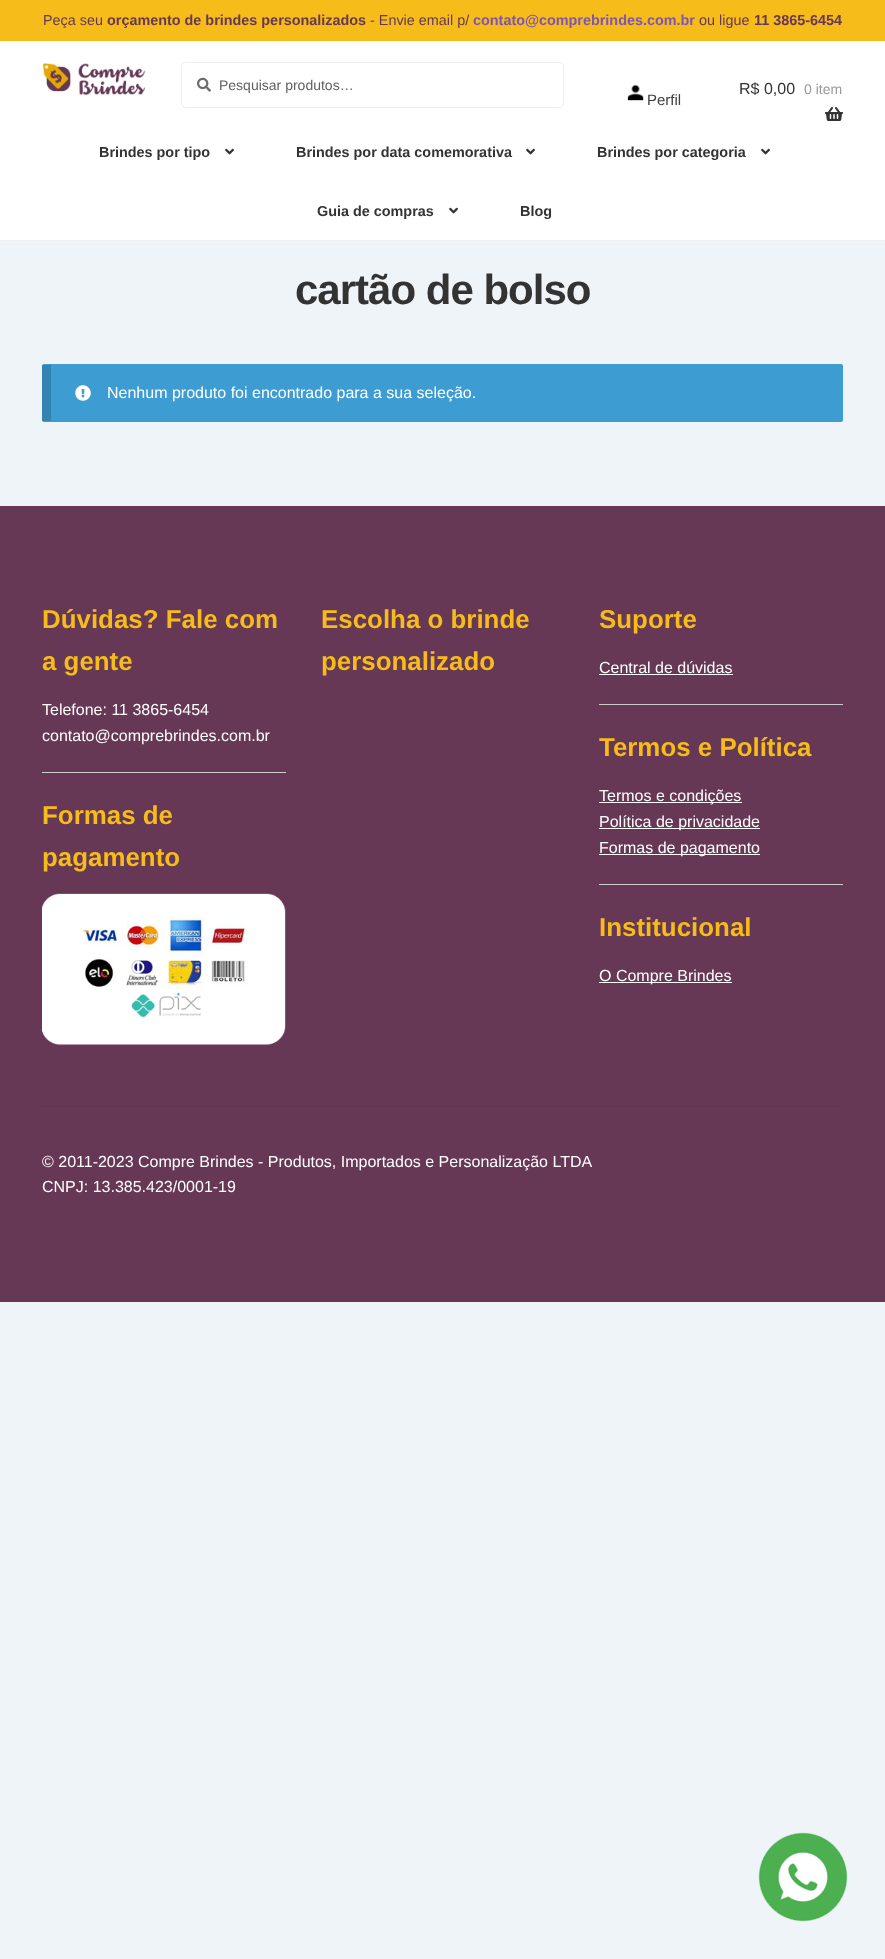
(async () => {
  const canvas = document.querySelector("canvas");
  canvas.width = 885;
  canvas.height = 1959;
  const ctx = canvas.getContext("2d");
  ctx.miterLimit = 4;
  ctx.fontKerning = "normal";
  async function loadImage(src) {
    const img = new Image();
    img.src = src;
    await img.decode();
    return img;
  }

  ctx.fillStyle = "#eff4f9";
  ctx.fillRect(0, 0, 885, 1959);
  for (const [x, y, w, h, color] of [
    [0, 41, 885, 199, "#ffffff"],
    [0, 240, 885, 1, "#f0f0f0"],
    [0, 0, 885, 41, "#f6bc1a"],
  ]) {
    ctx.fillStyle = color;
    ctx.fillRect(x, y, w, h);
  }
  ctx.drawImage(await loadImage("img/1.png"), 42, 63, 104, 33);
  ctx.beginPath();
  ctx.roundRect(181.5, 62.5, 382, 45, 4.5);
  ctx.strokeStyle = "#eeeeee";
  ctx.stroke();
  ctx.drawImage(await loadImage("img/2.png"), 197, 77, 14, 15);
  ctx.drawImage(await loadImage("img/3.png"), 825, 107, 18, 14);
  ctx.drawImage(await loadImage("img/4.png"), 627, 84, 17, 17);
  ctx.drawImage(await loadImage("img/5.png"), 225, 148, 9, 7);
  ctx.drawImage(await loadImage("img/5.png"), 526, 148, 9, 7);
  ctx.drawImage(await loadImage("img/5.png"), 761, 148, 9, 7);
  ctx.drawImage(await loadImage("img/5.png"), 449, 207, 9, 7);
  ctx.drawImage(await loadImage("img/6.png"), 758, 1832, 90, 90);
  ctx.fillStyle = "#3d9cd2";
  ctx.beginPath();
  ctx.roundRect(42, 364, 801, 58, 2);
  ctx.fill();
  ctx.fillStyle = "rgba(0, 0, 0, 0.15)";
  ctx.fillRect(42, 365, 9, 56);
  ctx.drawImage(await loadImage("img/7.png"), 75, 385, 16, 16);
  for (const [x, y, w, h, color] of [
    [0, 506, 885, 796, "#663856"],
    [42, 1106, 801, 1, "#613552"],
    [42, 772, 244, 1, "#cccccc"],
  ]) {
    ctx.fillStyle = color;
    ctx.fillRect(x, y, w, h);
  }
  ctx.drawImage(await loadImage("img/8.png"), 42, 893, 244, 152);
  for (const [x, y, w, h, color] of [
    [599, 674, 134, 1, "#ffffff"],
    [599, 704, 244, 1, "#cccccc"],
    [599, 802, 143, 1, "#ffffff"],
    [599, 828, 161, 1, "#ffffff"],
    [599, 854, 161, 1, "#ffffff"],
    [599, 884, 244, 1, "#cccccc"],
    [599, 982, 133, 1, "#ffffff"],
  ]) {
    ctx.fillStyle = color;
    ctx.fillRect(x, y, w, h);
  }
  ctx.font = "14.4px Liberation Sans";
  ctx.fillStyle = "#663856";
  ctx.fillText("Peça seu", 43, 25);
  ctx.font = "bold 14.4px Liberation Sans";
  ctx.fillText("orçamento de brindes personalizados", 107, 25);
  ctx.font = "14.4px Liberation Sans";
  ctx.fillText("- Envie email p/", 370, 25);
  ctx.font = "bold 14.4px Liberation Sans";
  ctx.fillStyle = "#7f54b3";
  ctx.fillText("contato@comprebrindes.com.br", 473, 25);
  ctx.font = "14.4px Liberation Sans";
  ctx.fillStyle = "#663856";
  ctx.fillText("ou ligue", 699, 25);
  ctx.font = "bold 14.4px Liberation Sans";
  ctx.fillText("11 3865-6454", 754, 25);
  ctx.font = "14px Liberation Sans";
  ctx.fillStyle = "#616161";
  ctx.fillText("Pesquisar produtos…", 219, 90);
  ctx.font = "16px Liberation Sans";
  ctx.fillStyle = "#333333";
  ctx.fillText("R$ 0,00", 739, 94);
  ctx.font = "14px Liberation Sans";
  ctx.fillStyle = "#999999";
  ctx.fillText("0 item", 804, 94);
  ctx.font = "15px Liberation Sans";
  ctx.fillStyle = "#404040";
  ctx.fillText("Perfil", 647, 105);
  ctx.font = "bold 14.4px Liberation Sans";
  ctx.fillStyle = "#333333";
  for (const [text, x, y] of [
    ["Brindes por tipo", 99, 157],
    ["Brindes por data comemorativa", 296, 157],
    ["Brindes por categoria", 597, 157],
    ["Guia de compras", 317, 216],
    ["Blog", 520, 216],
  ]) {
    ctx.fillText(text, x, y);
  }
  ctx.letterSpacing = "-1px";
  ctx.font = "bold 42px Liberation Sans";
  ctx.fillText("cartão de bolso", 295, 304);
  ctx.letterSpacing = "0px";
  ctx.font = "16px Liberation Sans";
  ctx.fillStyle = "#ffffff";
  ctx.fillText("Nenhum produto foi encontrado para a sua seleção.", 107, 398);
  ctx.font = "bold 25.9px Liberation Sans";
  ctx.fillStyle = "#f6bc1a";
  ctx.fillText("Dúvidas? Fale com", 42, 628);
  ctx.fillText("a gente", 42, 670);
  ctx.font = "16px Liberation Sans";
  ctx.fillStyle = "#ffffff";
  ctx.fillText("Telefone: 11 3865-6454", 42, 715);
  ctx.fillText("contato@comprebrindes.com.br", 42, 741);
  ctx.font = "bold 25.9px Liberation Sans";
  ctx.fillStyle = "#f6bc1a";
  for (const [text, x, y] of [
    ["Formas de", 42, 824],
    ["pagamento", 42, 866],
    ["Escolha o brinde", 321, 628],
    ["personalizado", 321, 670],
    ["Suporte", 599, 628],
  ]) {
    ctx.fillText(text, x, y);
  }
  ctx.font = "16px Liberation Sans";
  ctx.fillStyle = "#ffffff";
  ctx.fillText("Central de dúvidas", 599, 673);
  ctx.font = "bold 25.9px Liberation Sans";
  ctx.fillStyle = "#f6bc1a";
  ctx.fillText("Termos e Política", 599, 756);
  ctx.font = "16px Liberation Sans";
  ctx.fillStyle = "#ffffff";
  for (const [text, x, y] of [
    ["Termos e condições", 599, 801],
    ["Política de privacidade", 599, 827],
    ["Formas de pagamento", 599, 853],
  ]) {
    ctx.fillText(text, x, y);
  }
  ctx.font = "bold 25.9px Liberation Sans";
  ctx.fillStyle = "#f6bc1a";
  ctx.fillText("Institucional", 599, 936);
  ctx.font = "16px Liberation Sans";
  ctx.fillStyle = "#ffffff";
  for (const [text, x, y] of [
    ["O Compre Brindes", 599, 981],
    ["© 2011-2023 Compre Brindes - Produtos, Importados e Personalização LTDA", 42, 1167],
    ["CNPJ: 13.385.423/0001-19", 42, 1192],
  ]) {
    ctx.fillText(text, x, y);
  }
})();
